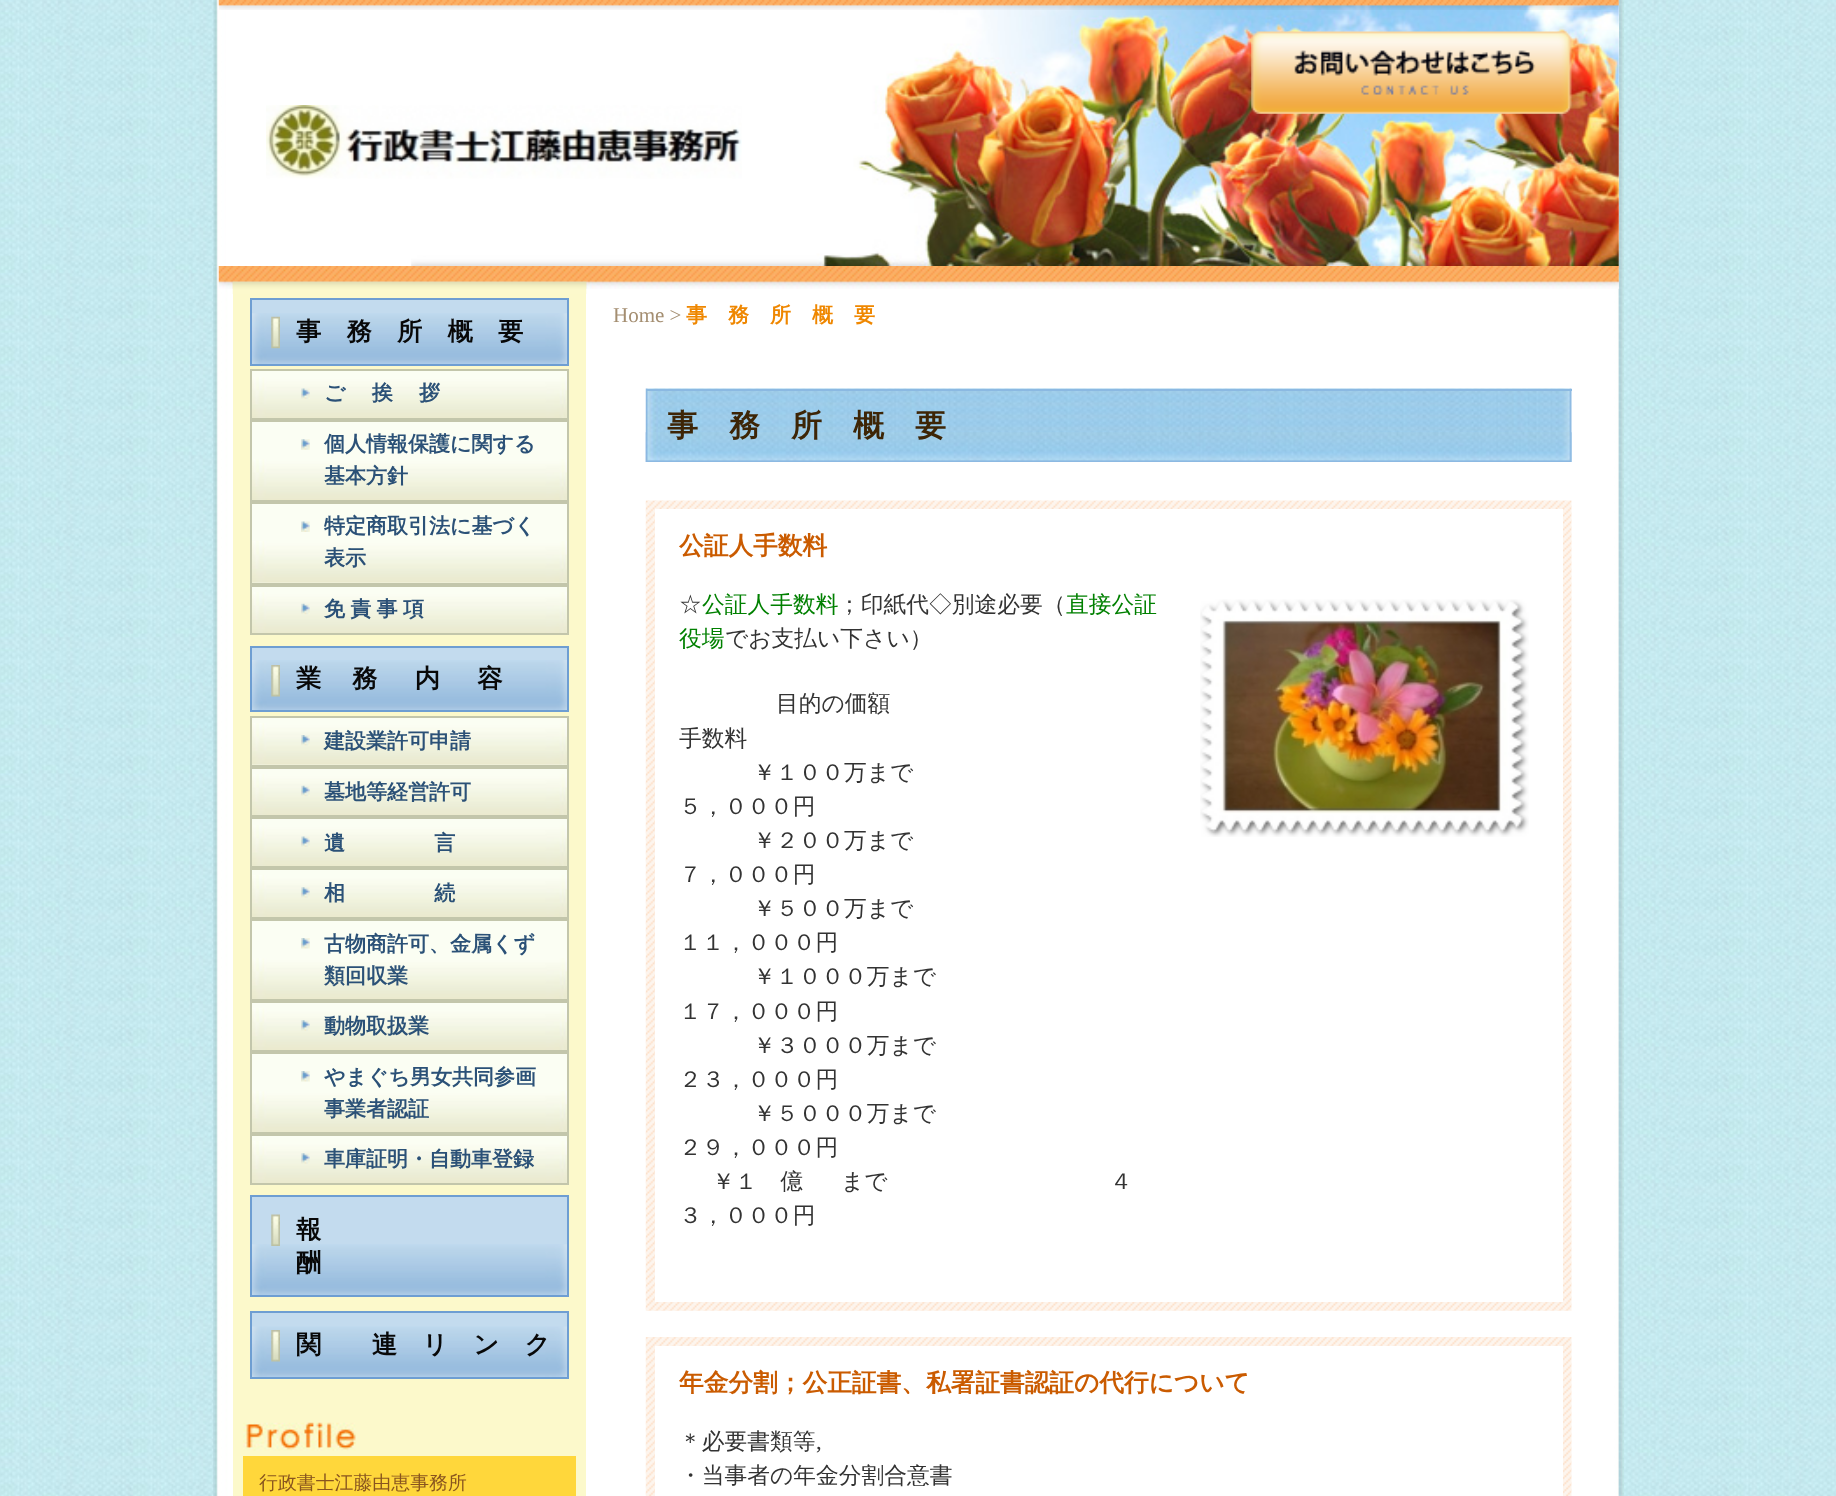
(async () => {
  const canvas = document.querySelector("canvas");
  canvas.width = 1836;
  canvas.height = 1496;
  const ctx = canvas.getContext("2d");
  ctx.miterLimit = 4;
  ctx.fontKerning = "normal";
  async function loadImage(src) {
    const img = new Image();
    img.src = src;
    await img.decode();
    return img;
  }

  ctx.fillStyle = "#ffffff";
  ctx.fillRect(0, 0, 1836, 1496);
  ctx.drawImage(await loadImage("img/1.png"), 0, 0, 1836, 1496);
  ctx.drawImage(await loadImage("img/2.png"), 213, 0, 1411, 1496);
  ctx.fillRect(226, 0, 1393, 266);
  ctx.drawImage(await loadImage("img/3.png"), 411, 0, 1208, 266);
  ctx.drawImage(await loadImage("img/4.png"), 218, 0, 1401, 10);
  ctx.drawImage(await loadImage("img/5.png"), 1251, 31, 321, 83);
  ctx.drawImage(await loadImage("img/6.png"), 266, 105, 476, 74);
  ctx.drawImage(await loadImage("img/7.png"), 213, 266, 1411, 1230);
  ctx.drawImage(await loadImage("img/8.png"), 218, 266, 1401, 23);
  ctx.fillStyle = "#fcf9cb";
  ctx.fillRect(233, 294, 353, 1202);
  ctx.drawImage(await loadImage("img/9.png"), 232, 281, 355, 13);
  ctx.fillStyle = "#c3dbee";
  ctx.fillRect(252, 300, 315, 14);
  ctx.drawImage(await loadImage("img/10.png"), 252, 313, 315, 51);
  ctx.strokeStyle = "#6e9ed2";
  ctx.lineWidth = 2;
  ctx.strokeRect(251, 299, 317, 66);
  ctx.drawImage(await loadImage("img/11.png"), 271, 316, 9, 33);
  ctx.fillStyle = "#fbfef3";
  ctx.fillRect(252, 371, 315, 6);
  ctx.drawImage(await loadImage("img/12.png"), 252, 377, 315, 41);
  ctx.strokeStyle = "#c3c6ab";
  ctx.strokeRect(251, 370, 317, 49);
  ctx.drawImage(await loadImage("img/13.png"), 301, 388, 9, 11);
  ctx.fillRect(252, 422, 315, 37);
  ctx.drawImage(await loadImage("img/14.png"), 252, 459, 315, 41);
  ctx.strokeRect(251, 421, 317, 80);
  ctx.drawImage(await loadImage("img/15.png"), 301, 439, 9, 11);
  ctx.fillRect(252, 504, 315, 79);
  ctx.drawImage(await loadImage("img/16.png"), 252, 541, 315, 42);
  ctx.strokeRect(251, 503, 317, 81);
  ctx.drawImage(await loadImage("img/17.png"), 301, 521, 9, 11);
  ctx.fillRect(252, 587, 315, 5);
  ctx.drawImage(await loadImage("img/14.png"), 252, 592, 315, 41);
  ctx.strokeRect(251, 586, 317, 48);
  ctx.drawImage(await loadImage("img/18.png"), 301, 603, 9, 12);
  ctx.fillStyle = "#c3dbee";
  ctx.fillRect(252, 648, 315, 12);
  ctx.drawImage(await loadImage("img/19.png"), 252, 660, 315, 50);
  ctx.strokeStyle = "#6e9ed2";
  ctx.strokeRect(251, 647, 317, 64);
  ctx.drawImage(await loadImage("img/20.png"), 271, 665, 9, 32);
  ctx.fillStyle = "#fbfef3";
  ctx.fillRect(252, 718, 315, 47);
  ctx.drawImage(await loadImage("img/16.png"), 252, 723, 315, 42);
  ctx.strokeStyle = "#c3c6ab";
  ctx.strokeRect(251, 717, 317, 49);
  ctx.drawImage(await loadImage("img/21.png"), 301, 735, 9, 11);
  ctx.fillRect(252, 769, 315, 5);
  ctx.drawImage(await loadImage("img/14.png"), 252, 774, 315, 41);
  ctx.strokeRect(251, 768, 317, 48);
  ctx.drawImage(await loadImage("img/18.png"), 301, 785, 9, 12);
  ctx.fillRect(252, 819, 315, 6);
  ctx.drawImage(await loadImage("img/12.png"), 252, 825, 315, 41);
  ctx.strokeRect(251, 818, 317, 49);
  ctx.drawImage(await loadImage("img/13.png"), 301, 836, 9, 11);
  ctx.fillRect(252, 870, 315, 5);
  ctx.drawImage(await loadImage("img/22.png"), 252, 875, 315, 42);
  ctx.strokeRect(251, 869, 317, 49);
  ctx.drawImage(await loadImage("img/23.png"), 301, 887, 9, 11);
  ctx.fillRect(252, 921, 315, 37);
  ctx.drawImage(await loadImage("img/12.png"), 252, 958, 315, 41);
  ctx.strokeRect(251, 920, 317, 80);
  ctx.drawImage(await loadImage("img/24.png"), 301, 938, 9, 11);
  ctx.fillRect(252, 1003, 315, 5);
  ctx.drawImage(await loadImage("img/22.png"), 252, 1008, 315, 42);
  ctx.strokeRect(251, 1002, 317, 49);
  ctx.drawImage(await loadImage("img/23.png"), 301, 1020, 9, 11);
  ctx.fillRect(252, 1054, 315, 37);
  ctx.drawImage(await loadImage("img/12.png"), 252, 1091, 315, 41);
  ctx.strokeRect(251, 1053, 317, 80);
  ctx.drawImage(await loadImage("img/24.png"), 301, 1071, 9, 11);
  ctx.fillRect(252, 1136, 315, 5);
  ctx.drawImage(await loadImage("img/22.png"), 252, 1141, 315, 42);
  ctx.strokeRect(251, 1135, 317, 49);
  ctx.drawImage(await loadImage("img/23.png"), 301, 1153, 9, 11);
  ctx.fillStyle = "#c3dbee";
  ctx.fillRect(252, 1197, 315, 48);
  ctx.drawImage(await loadImage("img/10.png"), 252, 1244, 315, 51);
  ctx.strokeStyle = "#6e9ed2";
  ctx.strokeRect(251, 1196, 317, 100);
  ctx.drawImage(await loadImage("img/25.png"), 271, 1214, 9, 32);
  ctx.fillRect(252, 1313, 315, 14);
  ctx.drawImage(await loadImage("img/26.png"), 252, 1326, 315, 51);
  ctx.strokeRect(251, 1312, 317, 66);
  ctx.drawImage(await loadImage("img/27.png"), 271, 1330, 9, 32);
  ctx.drawImage(await loadImage("img/28.png"), 243, 1422, 113, 29);
  ctx.fillStyle = "#ffd73b";
  ctx.fillRect(243, 1456, 333, 40);
  ctx.drawImage(await loadImage("img/29.png"), 645, 388, 927, 74);
  ctx.fillStyle = "#8bb9e2";
  ctx.fillRect(646, 389, 926, 2);
  ctx.drawImage(await loadImage("img/30.png"), 645, 432, 927, 30);
  ctx.drawImage(await loadImage("img/31.png"), 645, 500, 927, 811);
  ctx.fillStyle = "#ffffff";
  ctx.fillRect(655, 509, 908, 793);
  ctx.drawImage(await loadImage("img/32.png"), 1200, 599, 329, 238);
  ctx.drawImage(await loadImage("img/33.png"), 645, 1337, 927, 159);
  ctx.fillRect(655, 1346, 908, 150);
  ctx.font = "bold 25.25px WenQuanYi Zen Hei";
  ctx.fillStyle = "#080808";
  ctx.fillText("事　務　所　概　要", 296, 340);
  ctx.wordSpacing = "-1px";
  ctx.font = "bold 21px WenQuanYi Zen Hei";
  ctx.fillStyle = "#2b5177";
  ctx.fillText("ご　 挨 　拶", 324, 400);
  ctx.wordSpacing = "0px";
  for (const [text, x, y] of [
    ["個人情報保護に関する", 324, 451],
    ["基本方針", 324, 483],
    ["特定商取引法に基づく", 324, 533],
    ["表示", 324, 565],
  ]) {
    ctx.fillText(text, x, y);
  }
  ctx.wordSpacing = "-1px";
  ctx.fillText("免 責 事 項", 324, 616);
  ctx.wordSpacing = "0px";
  ctx.font = "bold 25.25px WenQuanYi Zen Hei";
  ctx.fillStyle = "#080808";
  ctx.fillText("業", 296, 687);
  ctx.wordSpacing = "-1.5px";
  ctx.fillText("務 　 内 　 容", 352, 687);
  ctx.wordSpacing = "0px";
  ctx.font = "bold 21px WenQuanYi Zen Hei";
  ctx.fillStyle = "#2b5177";
  ctx.fillText("建設業許可申請", 324, 748);
  ctx.fillText("墓地等経営許可", 324, 799);
  ctx.wordSpacing = "-1px";
  ctx.fillText("遺　　　　 言", 324, 850);
  ctx.fillText("相 　　　　続", 324, 900);
  ctx.wordSpacing = "0px";
  for (const [text, x, y] of [
    ["古物商許可、金属くず", 324, 951],
    ["類回収業", 324, 983],
    ["動物取扱業", 324, 1033],
    ["やまぐち男女共同参画", 324, 1084],
    ["事業者認証", 324, 1116],
    ["車庫証明・自動車登録", 324, 1166],
  ]) {
    ctx.fillText(text, x, y);
  }
  ctx.font = "bold 25.25px WenQuanYi Zen Hei";
  ctx.fillStyle = "#080808";
  for (const [text, x, y] of [
    ["報", 296, 1238],
    ["酬", 296, 1271],
    ["関　　連　リ　ン　ク", 296, 1353],
  ]) {
    ctx.fillText(text, x, y);
  }
  ctx.font = "500 18.9px WenQuanYi Zen Hei";
  ctx.fillStyle = "#89551f";
  ctx.fillText("行政書士江藤由恵事務所", 259, 1489);
  ctx.font = "21px Liberation Serif";
  ctx.fillStyle = "#a48e71";
  ctx.fillText("Home >", 613, 322);
  ctx.font = "bold 21px WenQuanYi Zen Hei";
  ctx.fillStyle = "#ef8700";
  ctx.fillText("事　務　所　概　要", 686, 322);
  ctx.font = "bold 31px WenQuanYi Zen Hei";
  ctx.fillStyle = "#3d2506";
  ctx.fillText("事　務　所　概　要", 667, 436);
  ctx.font = "bold 24.7px WenQuanYi Zen Hei";
  ctx.fillStyle = "#ca5b00";
  ctx.fillText("公証人手数料", 679, 554);
  ctx.font = "500 22.75px WenQuanYi Zen Hei";
  ctx.fillStyle = "#333333";
  ctx.fillText("☆", 679, 612);
  ctx.fillStyle = "#008000";
  ctx.fillText("公証人手数料", 702, 612);
  ctx.fillStyle = "#333333";
  ctx.fillText("；印紙代◇別途必要（", 838, 612);
  ctx.fillStyle = "#008000";
  ctx.fillText("直接公証", 1066, 612);
  ctx.fillText("役場", 679, 646);
  ctx.fillStyle = "#333333";
  for (const [text, x, y] of [
    ["でお支払い下さい）", 725, 646],
    ["目的の価額", 776, 711],
    ["手数料", 679, 746],
    ["￥１００万まで", 753, 780],
    ["５，０００円", 679, 814],
    ["￥２００万まで", 753, 848],
    ["７，０００円", 679, 882],
    ["￥５００万まで", 753, 916],
    ["１１，０００円", 679, 950],
    ["￥１０００万まで", 753, 984],
    ["１７，０００円", 679, 1019],
    ["￥３０００万まで", 753, 1053],
    ["２３，０００円", 679, 1087],
    ["￥５０００万まで", 753, 1121],
    ["２９，０００円", 679, 1155],
    ["￥１　億", 712, 1189],
  ]) {
    ctx.fillText(text, x, y);
  }
  ctx.wordSpacing = "-1px";
  ctx.fillText("まで　　 　　　　　　 　 ４", 841, 1189);
  ctx.wordSpacing = "0px";
  ctx.fillText("３，０００円", 679, 1223);
  ctx.font = "bold 24.7px WenQuanYi Zen Hei";
  ctx.fillStyle = "#ca5b00";
  ctx.fillText("年金分割；公正証書、私署証書認証の代行について", 679, 1391);
  ctx.font = "500 22.75px WenQuanYi Zen Hei";
  ctx.fillStyle = "#333333";
  ctx.fillText("＊必要書類等", 679, 1449);
  ctx.font = "22.75px Liberation Serif";
  ctx.fillText(",", 816, 1449);
  ctx.font = "500 22.75px WenQuanYi Zen Hei";
  ctx.fillText("・当事者の年金分割合意書", 679, 1483);
})();
